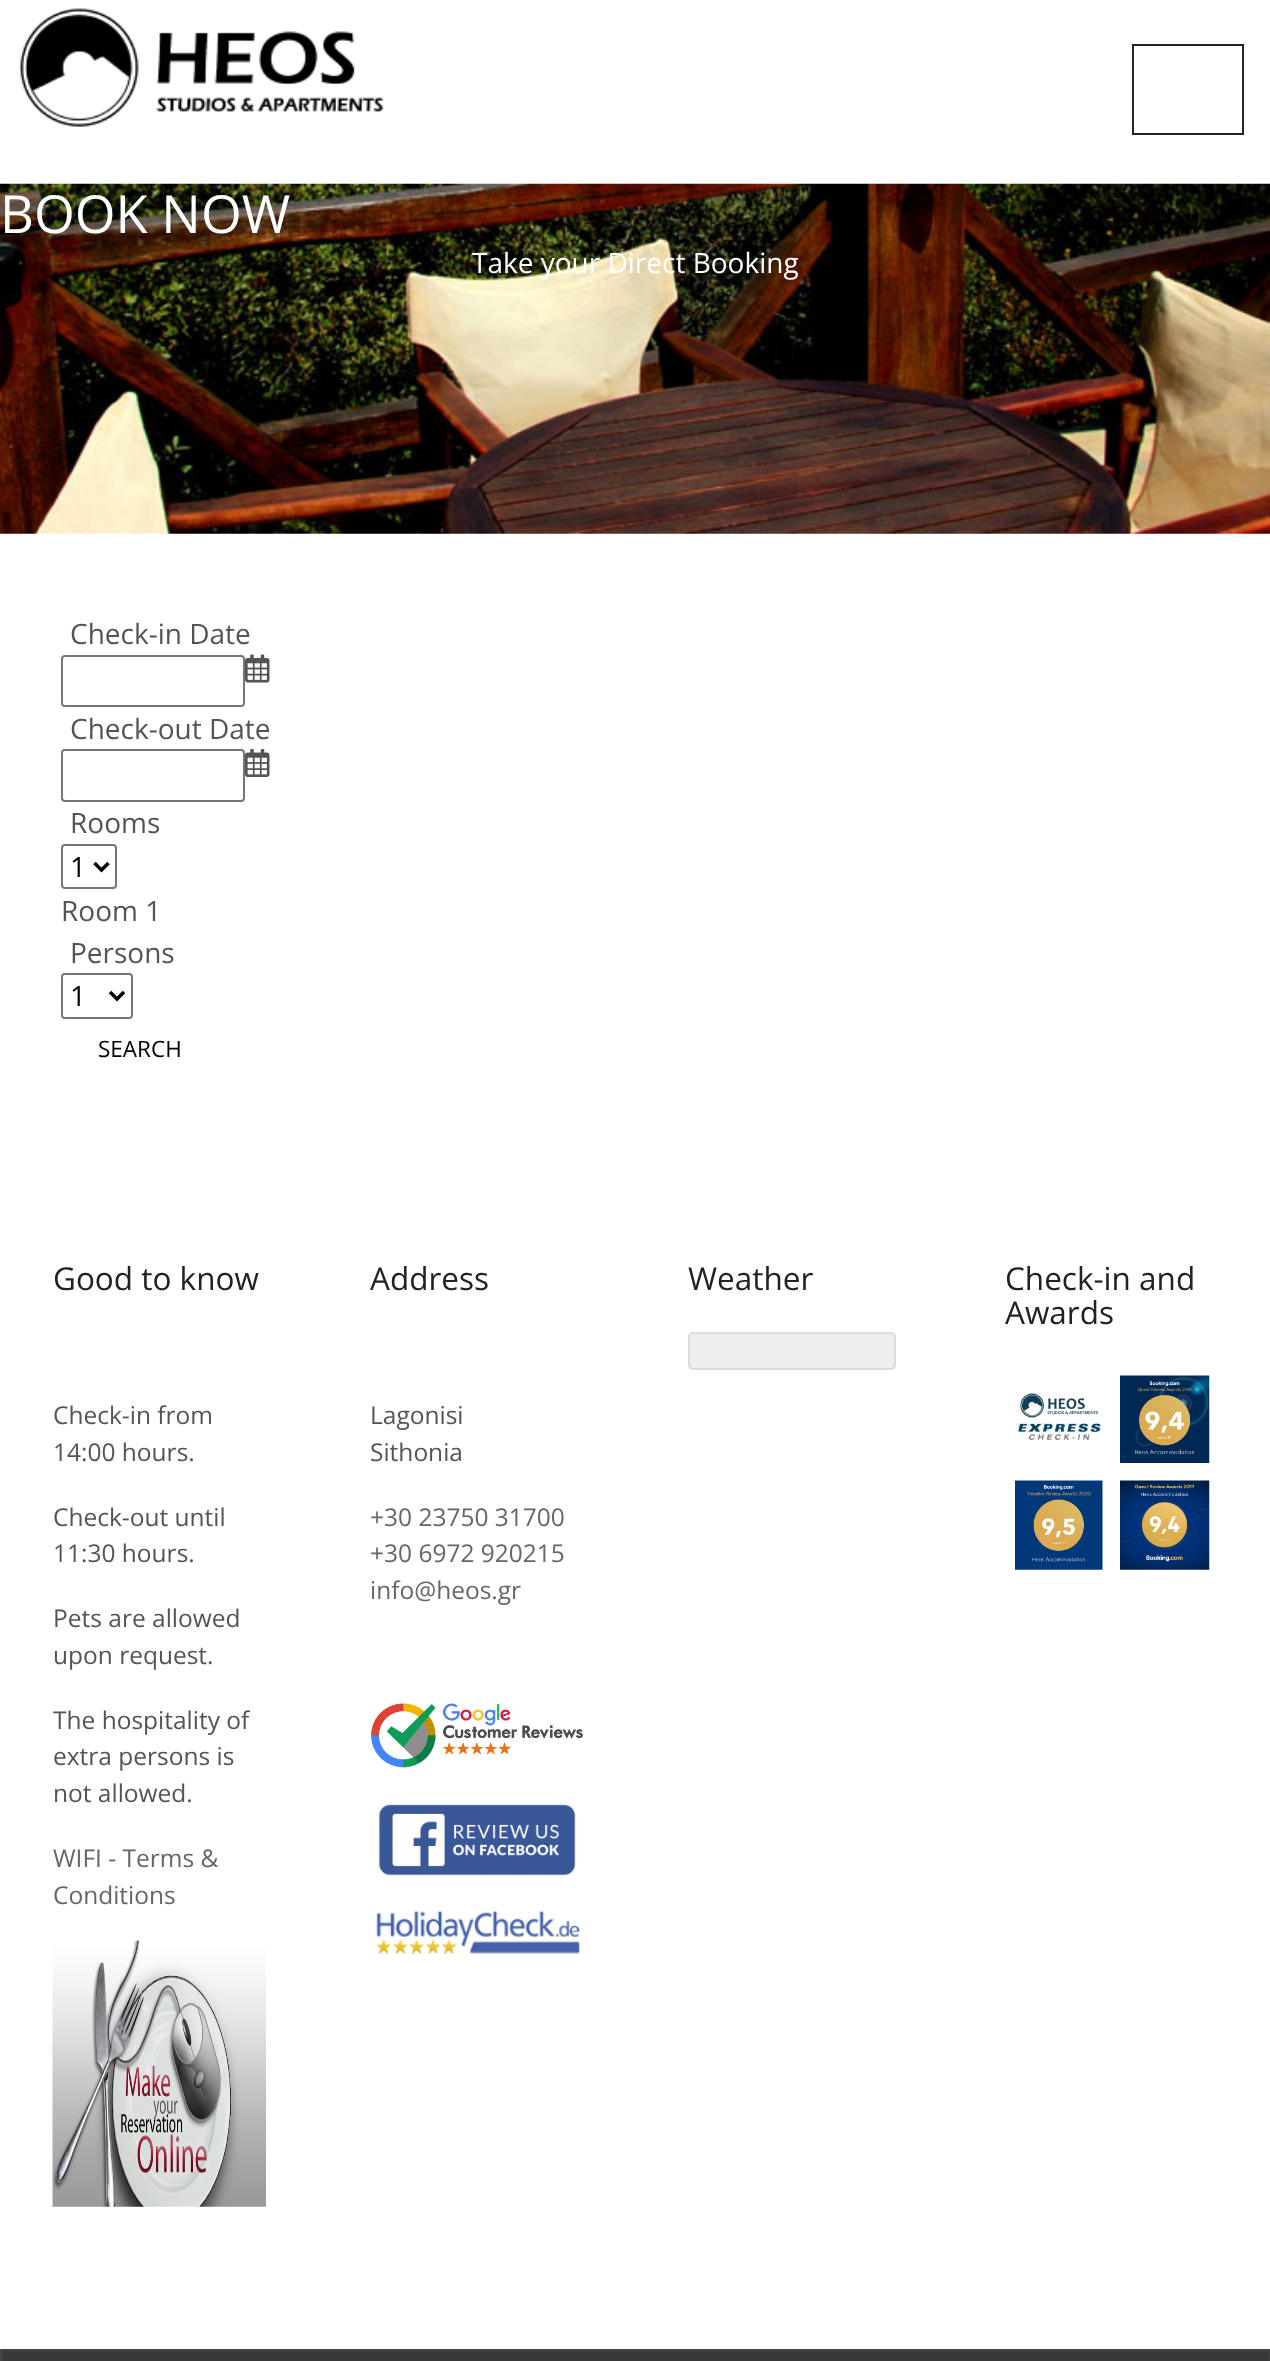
(async () => {
  const canvas = document.querySelector("canvas");
  canvas.width = 1270;
  canvas.height = 2361;
  const ctx = canvas.getContext("2d");
  ctx.miterLimit = 4;
  ctx.fontKerning = "normal";
  async function loadImage(src) {
    const img = new Image();
    img.src = src;
    await img.decode();
    return img;
  }
  let path;

  ctx.fillStyle = "#ffffff";
  ctx.fillRect(0, 0, 1270, 2361);
  ctx.drawImage(await loadImage("img/1.png"), 20, 8, 364, 119);
  ctx.strokeStyle = "#222222";
  ctx.lineWidth = 2;
  ctx.strokeRect(1133, 45, 110, 89);
  ctx.drawImage(await loadImage("img/2.png"), 0, 183, 1270, 351);
  ctx.beginPath();
  ctx.roundRect(62, 656, 182, 50, 3);
  ctx.strokeStyle = "#767676";
  ctx.stroke();
  ctx.drawImage(await loadImage("img/3.png"), 245, 654, 25, 29);
  ctx.beginPath();
  ctx.roundRect(62, 750, 182, 51, 3);
  ctx.stroke();
  ctx.drawImage(await loadImage("img/4.png"), 245, 749, 25, 28);
  ctx.beginPath();
  ctx.roundRect(62, 845, 54, 43, 3);
  ctx.stroke();
  path = new Path2D("M94.5 863L101.5 870L108.5 863");
  ctx.strokeStyle = "#000000";
  ctx.lineWidth = 3.5;
  ctx.stroke(path);
  ctx.beginPath();
  ctx.roundRect(62, 974, 70, 44, 3);
  ctx.strokeStyle = "#767676";
  ctx.lineWidth = 2;
  ctx.stroke();
  path = new Path2D("M110 992L117 999L124 992");
  ctx.strokeStyle = "#000000";
  ctx.lineWidth = 3.5;
  ctx.stroke(path);
  ctx.drawImage(await loadImage("img/5.png"), 52, 1940, 214, 267);
  ctx.drawImage(await loadImage("img/6.png"), 371, 1703, 212, 65);
  ctx.drawImage(await loadImage("img/7.png"), 378, 1804, 198, 72);
  ctx.drawImage(await loadImage("img/8.png"), 376, 1911, 204, 43);
  ctx.fillStyle = "#eeeeee";
  ctx.beginPath();
  ctx.roundRect(689, 1333, 206, 36, 4);
  ctx.fill();
  ctx.strokeStyle = "#dddddd";
  ctx.lineWidth = 2;
  ctx.stroke();
  ctx.drawImage(await loadImage("img/9.png"), 1017, 1393, 84, 47);
  ctx.drawImage(await loadImage("img/10.png"), 1120, 1375, 90, 88);
  ctx.drawImage(await loadImage("img/11.png"), 1015, 1480, 88, 90);
  ctx.drawImage(await loadImage("img/12.png"), 1120, 1480, 90, 90);
  ctx.fillStyle = "#393939";
  ctx.beginPath();
  ctx.rect(1, 2350, 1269, 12);
  ctx.fill();
  ctx.strokeStyle = "#444444";
  ctx.stroke();
  ctx.font = "52.5px Open Sans";
  ctx.fillStyle = "#ffffff";
  ctx.fillText("BOOK NOW", 0, 233);
  ctx.font = "28px Open Sans";
  ctx.fillText("Take your Direct Booking", 472, 273);
  ctx.fillStyle = "#545454";
  for (const [text, x, y] of [
    ["Check-in Date", 70, 644],
    ["Check-out Date", 70, 739],
    ["Rooms", 70, 833],
  ]) {
    ctx.fillText(text, x, y);
  }
  ctx.fillStyle = "#000000";
  ctx.fillText("1", 70, 877);
  ctx.fillStyle = "#545454";
  ctx.fillText("Room 1", 61, 921);
  ctx.fillText("Persons", 70, 963);
  ctx.fillStyle = "#000000";
  ctx.fillText("1", 70, 1006);
  ctx.font = "22.5px Open Sans";
  ctx.fillText("SEARCH", 98, 1057);
  ctx.font = "31.5px Open Sans";
  ctx.fillStyle = "#222222";
  ctx.fillText("Good to know", 53, 1290);
  ctx.font = "24.5px Open Sans";
  ctx.fillStyle = "#545454";
  for (const [text, x, y] of [
    ["Check-in from", 53, 1424],
    ["14:00 hours.", 53, 1461],
    ["Check-out until", 53, 1526],
    ["11:30 hours.", 53, 1562],
    ["Pets are allowed", 53, 1627],
    ["upon request.", 53, 1664],
    ["The hospitality of", 53, 1729],
    ["extra persons is", 53, 1765],
    ["not allowed.", 53, 1802],
  ]) {
    ctx.fillText(text, x, y);
  }
  ctx.fillStyle = "#666666";
  ctx.fillText("WIFI - Terms &", 53, 1867);
  ctx.fillText("Conditions", 53, 1904);
  ctx.font = "31.5px Open Sans";
  ctx.fillStyle = "#222222";
  ctx.fillText("Address", 370, 1290);
  ctx.font = "24.5px Open Sans";
  ctx.fillStyle = "#545454";
  ctx.fillText("Lagonisi", 370, 1424);
  ctx.fillText("Sithonia", 370, 1461);
  ctx.fillStyle = "#666666";
  for (const [text, x, y] of [
    ["+30 23750 31700", 370, 1526],
    ["+30 6972 920215", 370, 1562],
    ["info@heos.gr", 370, 1599],
  ]) {
    ctx.fillText(text, x, y);
  }
  ctx.font = "31.5px Open Sans";
  ctx.fillStyle = "#222222";
  for (const [text, x, y] of [
    ["Weather", 688, 1290],
    ["Check-in and", 1005, 1290],
    ["Awards", 1005, 1324],
  ]) {
    ctx.fillText(text, x, y);
  }
})();
